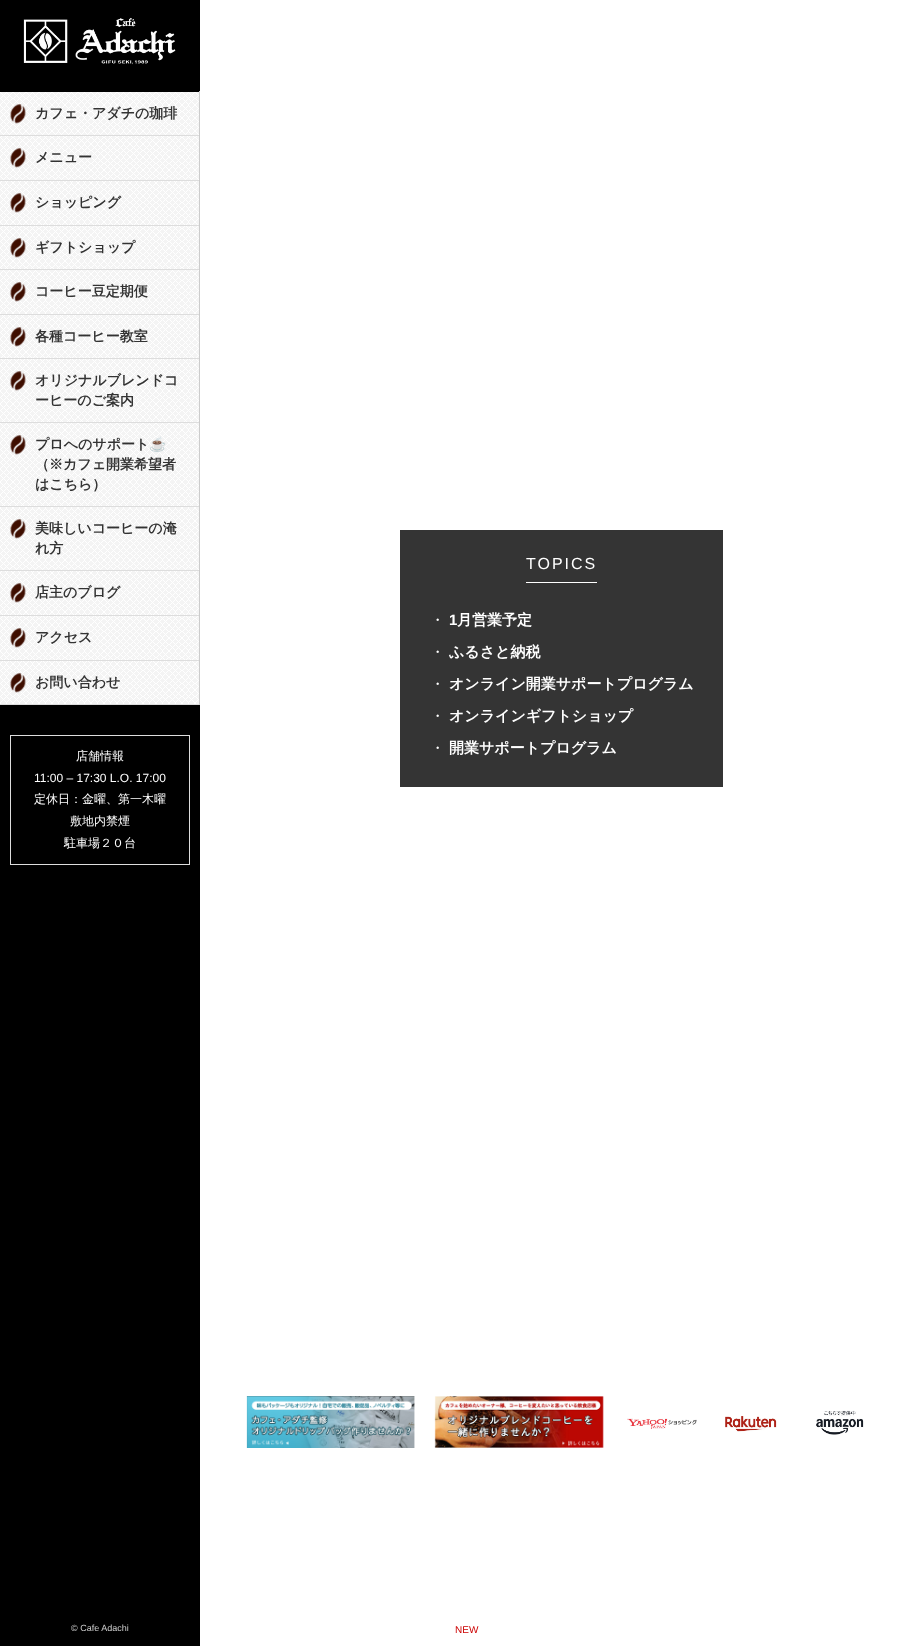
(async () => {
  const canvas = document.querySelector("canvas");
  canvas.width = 923;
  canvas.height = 1646;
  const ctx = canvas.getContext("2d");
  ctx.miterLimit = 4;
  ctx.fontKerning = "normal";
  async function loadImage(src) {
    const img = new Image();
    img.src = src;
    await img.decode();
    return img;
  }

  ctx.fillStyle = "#ffffff";
  ctx.fillRect(0, 0, 923, 1646);
  ctx.fillStyle = "#000000";
  ctx.fillRect(0, 0, 200, 1646);
  ctx.drawImage(await loadImage("img/1.png"), 23, 17, 153, 48);
  ctx.drawImage(await loadImage("img/2.png"), 0, 92, 199, 612);
  ctx.fillStyle = "#cccccc";
  ctx.fillRect(199, 91, 1, 614);
  ctx.drawImage(await loadImage("img/3.png"), 10, 104, 16, 20);
  ctx.fillStyle = "#dddddd";
  ctx.fillRect(0, 135, 199, 1);
  ctx.drawImage(await loadImage("img/4.png"), 10, 148, 16, 20);
  ctx.fillRect(0, 180, 199, 1);
  ctx.drawImage(await loadImage("img/5.png"), 10, 193, 16, 20);
  ctx.fillRect(0, 225, 199, 1);
  ctx.drawImage(await loadImage("img/6.png"), 10, 238, 16, 20);
  ctx.fillRect(0, 269, 199, 1);
  ctx.drawImage(await loadImage("img/7.png"), 10, 282, 16, 20);
  ctx.fillRect(0, 314, 199, 1);
  ctx.drawImage(await loadImage("img/8.png"), 10, 327, 16, 20);
  ctx.fillRect(0, 358, 199, 1);
  ctx.drawImage(await loadImage("img/9.png"), 10, 371, 16, 20);
  ctx.fillRect(0, 422, 199, 1);
  ctx.drawImage(await loadImage("img/10.png"), 10, 435, 16, 20);
  ctx.fillRect(0, 506, 199, 1);
  ctx.drawImage(await loadImage("img/11.png"), 10, 519, 16, 20);
  ctx.fillRect(0, 570, 199, 1);
  ctx.drawImage(await loadImage("img/5.png"), 10, 583, 16, 20);
  ctx.fillRect(0, 615, 199, 1);
  ctx.drawImage(await loadImage("img/6.png"), 10, 628, 16, 20);
  ctx.fillRect(0, 660, 199, 1);
  ctx.drawImage(await loadImage("img/12.png"), 10, 673, 16, 20);
  ctx.fillRect(0, 704, 199, 1);
  ctx.strokeStyle = "#dddddd";
  ctx.strokeRect(10.5, 735.5, 179, 129);
  ctx.fillStyle = "#343434";
  ctx.fillRect(400, 530, 323, 257);
  ctx.fillStyle = "#ffffff";
  ctx.fillRect(526, 582, 71, 1);
  ctx.drawImage(await loadImage("img/13.png"), 246, 1396, 169, 52);
  ctx.drawImage(await loadImage("img/14.png"), 434, 1396, 170, 52);
  ctx.drawImage(await loadImage("img/15.png"), 627, 1418, 70, 11);
  ctx.drawImage(await loadImage("img/16.png"), 725, 1416, 52, 16);
  ctx.drawImage(await loadImage("img/17.png"), 816, 1410, 48, 25);
  ctx.font = "bold 14px WenQuanYi Zen Hei";
  ctx.fillStyle = "#333333";
  for (const [text, x, y] of [
    ["カフェ・アダチの珈琲", 35, 118],
    ["メニュー", 35, 162],
    ["ショッピング", 35, 207],
    ["ギフトショップ", 35, 252],
    ["コーヒー豆定期便", 35, 296],
    ["各種コーヒー教室", 35, 341],
    ["オリジナルブレンドコ", 35, 385],
    ["ーヒーのご案内", 35, 405],
    ["プロへのサポート", 35, 449],
  ]) {
    ctx.fillText(text, x, y);
  }
  ctx.font = "bold 14px Noto Color Emoji";
  ctx.fillText("☕️", 149, 449);
  ctx.font = "bold 14px WenQuanYi Zen Hei";
  for (const [text, x, y] of [
    ["（※カフェ開業希望者", 35, 469],
    ["はこちら）", 35, 489],
    ["美味しいコーヒーの淹", 35, 533],
    ["れ方", 35, 553],
    ["店主のブログ", 35, 597],
    ["アクセス", 35, 642],
    ["お問い合わせ", 35, 687],
  ]) {
    ctx.fillText(text, x, y);
  }
  ctx.font = "500 12px WenQuanYi Zen Hei";
  ctx.fillStyle = "#ffffff";
  ctx.fillText("店舗情報", 76, 760);
  ctx.font = "12px Liberation Sans";
  ctx.fillText("11:00 – 17:30 L.O. 17:00", 34, 782);
  ctx.font = "500 12px WenQuanYi Zen Hei";
  for (const [text, x, y] of [
    ["定休日：金曜、第一木曜", 34, 803],
    ["敷地内禁煙", 70, 825],
    ["駐車場２０台", 64, 847],
  ]) {
    ctx.fillText(text, x, y);
  }
  ctx.font = "9px Liberation Sans";
  ctx.fillStyle = "#cccccc";
  ctx.fillText("© Cafe Adachi", 71, 1631);
  ctx.letterSpacing = "2px";
  ctx.font = "16px Liberation Sans";
  ctx.fillStyle = "#ffffff";
  ctx.fillText("TOPICS", 526, 569);
  ctx.letterSpacing = "0px";
  ctx.font = "500 15px WenQuanYi Zen Hei";
  ctx.fillText("・", 430, 625);
  ctx.font = "bold 15px Liberation Sans";
  ctx.fillText("1", 449, 625);
  ctx.font = "bold 15px WenQuanYi Zen Hei";
  ctx.fillText("月営業予定", 457, 625);
  ctx.font = "500 15px WenQuanYi Zen Hei";
  ctx.fillText("・", 430, 657);
  ctx.font = "bold 15px WenQuanYi Zen Hei";
  ctx.fillText("ふるさと納税", 449, 657);
  ctx.font = "500 15px WenQuanYi Zen Hei";
  ctx.fillText("・", 430, 689);
  ctx.font = "bold 15px WenQuanYi Zen Hei";
  ctx.fillText("オンライン開業サポートプログラム", 449, 689);
  ctx.font = "500 15px WenQuanYi Zen Hei";
  ctx.fillText("・", 430, 721);
  ctx.font = "bold 15px WenQuanYi Zen Hei";
  ctx.fillText("オンラインギフトショップ", 449, 721);
  ctx.font = "500 15px WenQuanYi Zen Hei";
  ctx.fillText("・", 430, 753);
  ctx.font = "bold 15px WenQuanYi Zen Hei";
  ctx.fillText("開業サポートプログラム", 449, 753);
  ctx.font = "10px Liberation Sans";
  ctx.fillStyle = "#cc0000";
  ctx.fillText("NEW", 455, 1633);
})();
